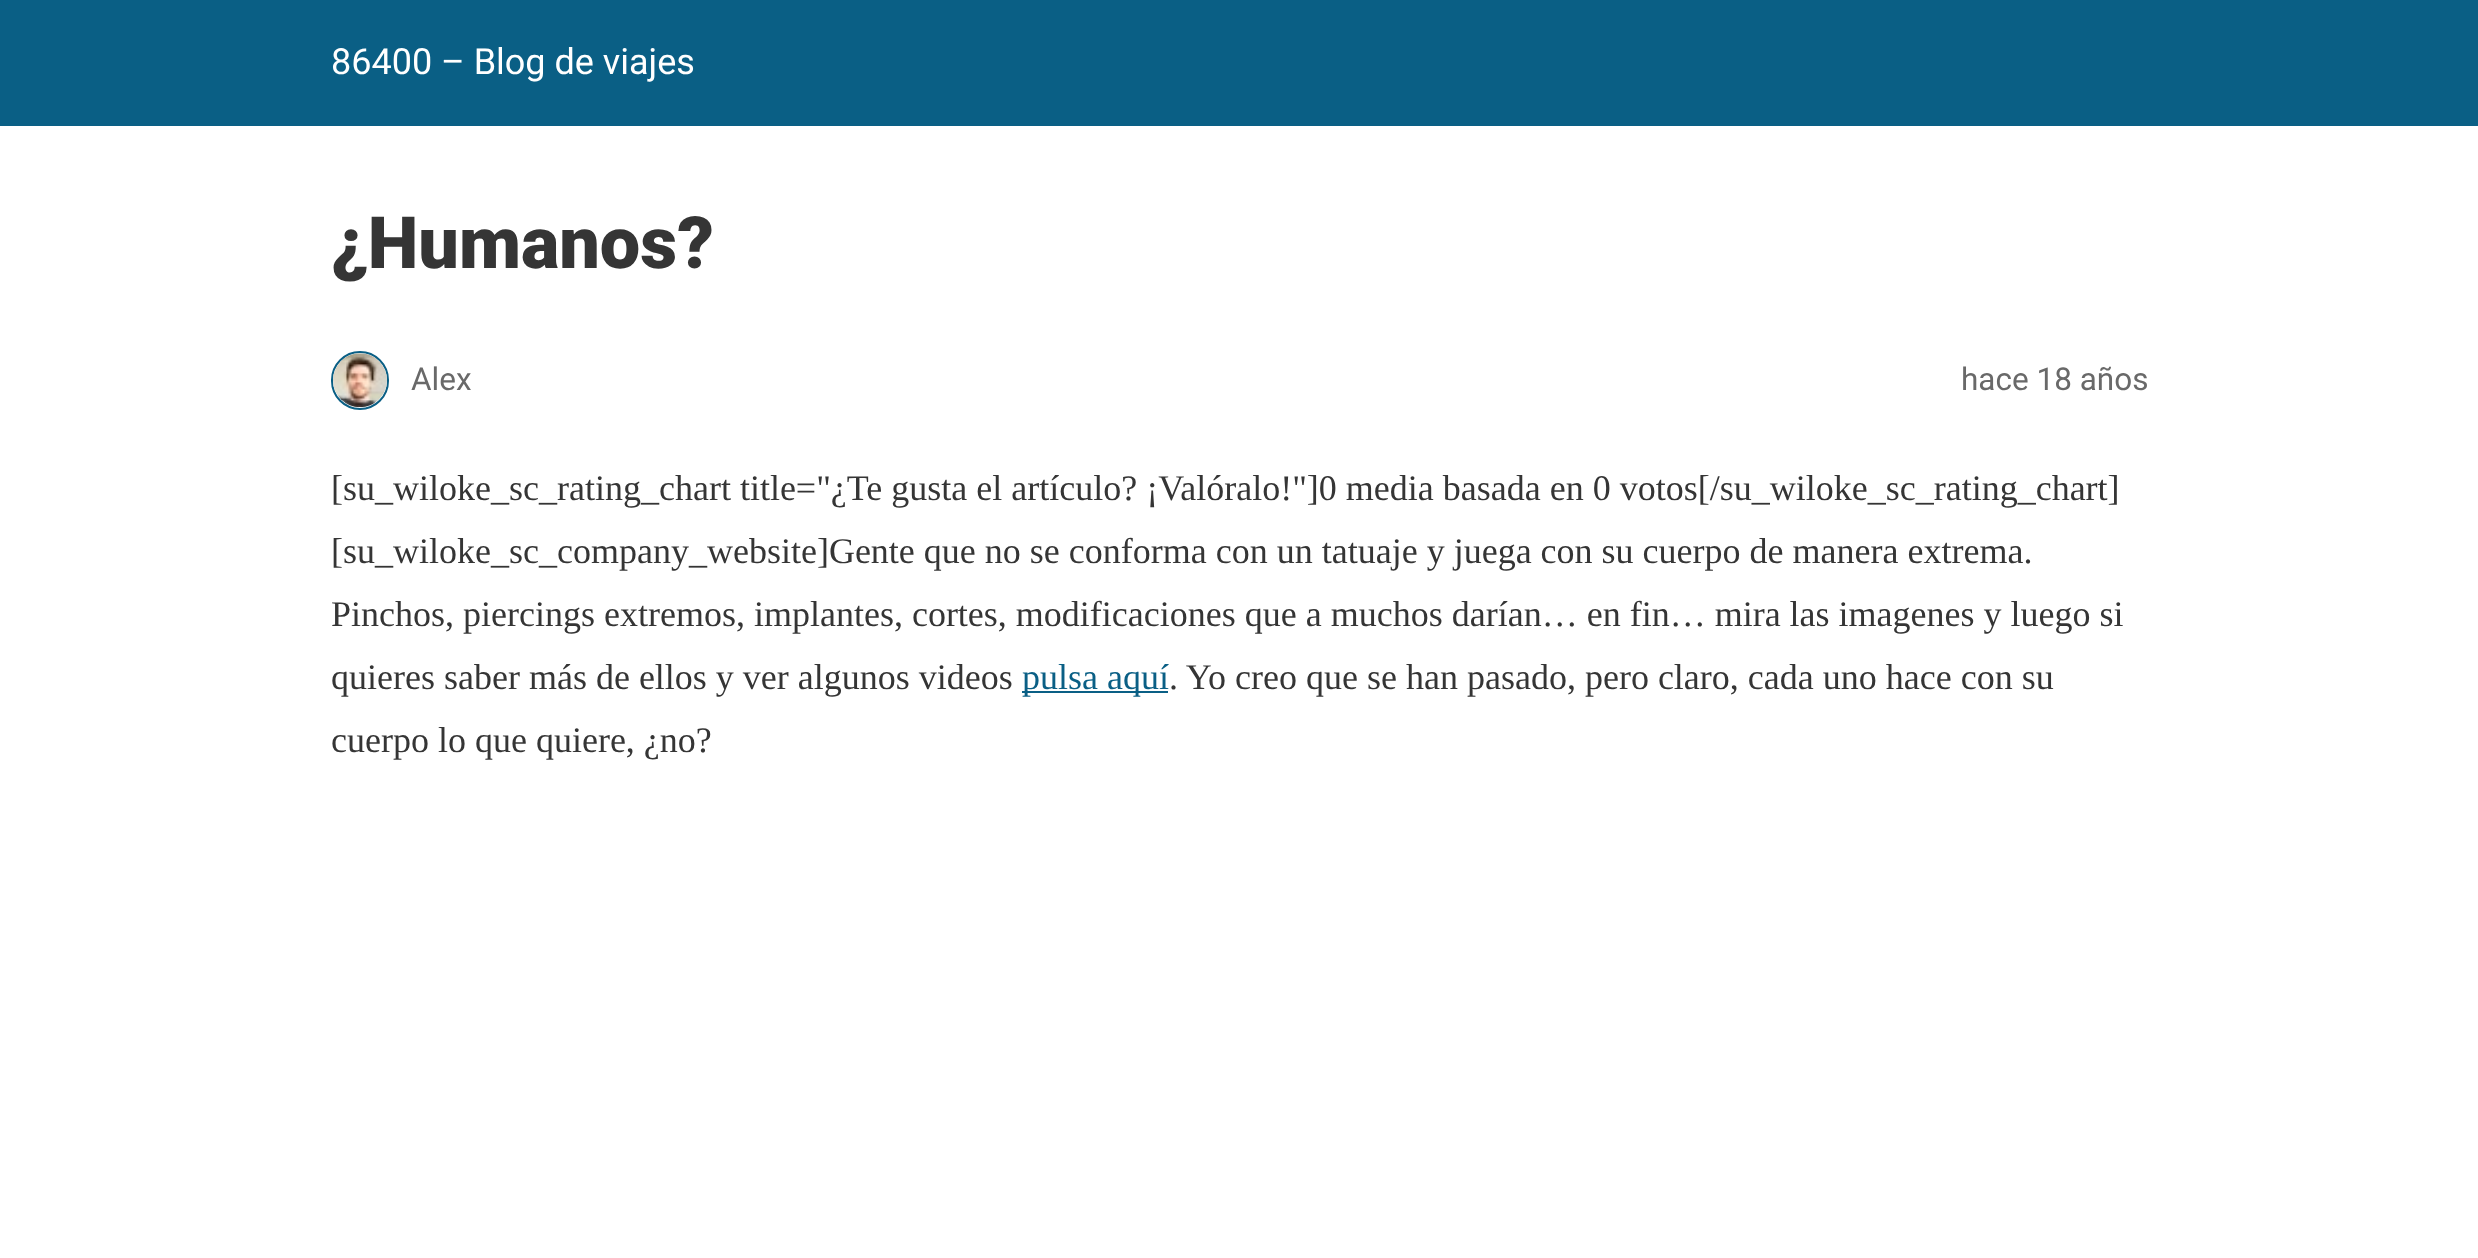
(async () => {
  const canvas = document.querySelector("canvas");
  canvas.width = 2478;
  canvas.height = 1258;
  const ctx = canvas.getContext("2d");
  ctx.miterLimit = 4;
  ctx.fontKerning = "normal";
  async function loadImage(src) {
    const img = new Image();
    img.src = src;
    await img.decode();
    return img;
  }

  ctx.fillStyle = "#ffffff";
  ctx.fillRect(0, 0, 2478, 1258);
  ctx.fillStyle = "#0a5f85";
  ctx.fillRect(0, 0, 2478, 126);
  ctx.beginPath();
  ctx.roundRect(332, 352, 56, 57, 28);
  ctx.strokeStyle = "#0a5f85";
  ctx.lineWidth = 2;
  ctx.stroke();
  ctx.drawImage(await loadImage("img/1.png"), 333, 353, 54, 55);
  ctx.fillRect(1022, 691, 146, 2);
  ctx.font = "36px Roboto";
  ctx.fillStyle = "#ffffff";
  ctx.fillText("86400 – Blog de viajes", 331, 74);
  ctx.font = "900 72px Roboto";
  ctx.fillStyle = "#353535";
  ctx.fillText("¿Humanos?", 331, 268);
  ctx.font = "31.5px Roboto";
  ctx.fillStyle = "#696969";
  ctx.fillText("Alex", 411, 390);
  ctx.fillText("hace 18 años", 1961, 390);
  ctx.font = "36px Liberation Serif";
  ctx.fillStyle = "#353535";
  for (const [text, x, y] of [
    ["[su_wiloke_sc_rating_chart title=\"¿Te gusta el artículo? ¡Valóralo!\"]0 media basada en 0 votos[/su_wiloke_sc_rating_chart]", 331, 500],
    ["[su_wiloke_sc_company_website]Gente que no se conforma con un tatuaje y juega con su cuerpo de manera extrema.", 331, 563],
    ["Pinchos, piercings extremos, implantes, cortes, modificaciones que a muchos darían… en fin… mira las imagenes y luego si", 331, 626],
    ["quieres saber más de ellos y ver algunos videos", 331, 689],
  ]) {
    ctx.fillText(text, x, y);
  }
  ctx.fillStyle = "#0a5f85";
  ctx.fillText("pulsa aquí", 1022, 689);
  ctx.fillStyle = "#353535";
  ctx.fillText(". Yo creo que se han pasado, pero claro, cada uno hace con su", 1169, 689);
  ctx.fillText("cuerpo lo que quiere, ¿no?", 331, 752);
})();
